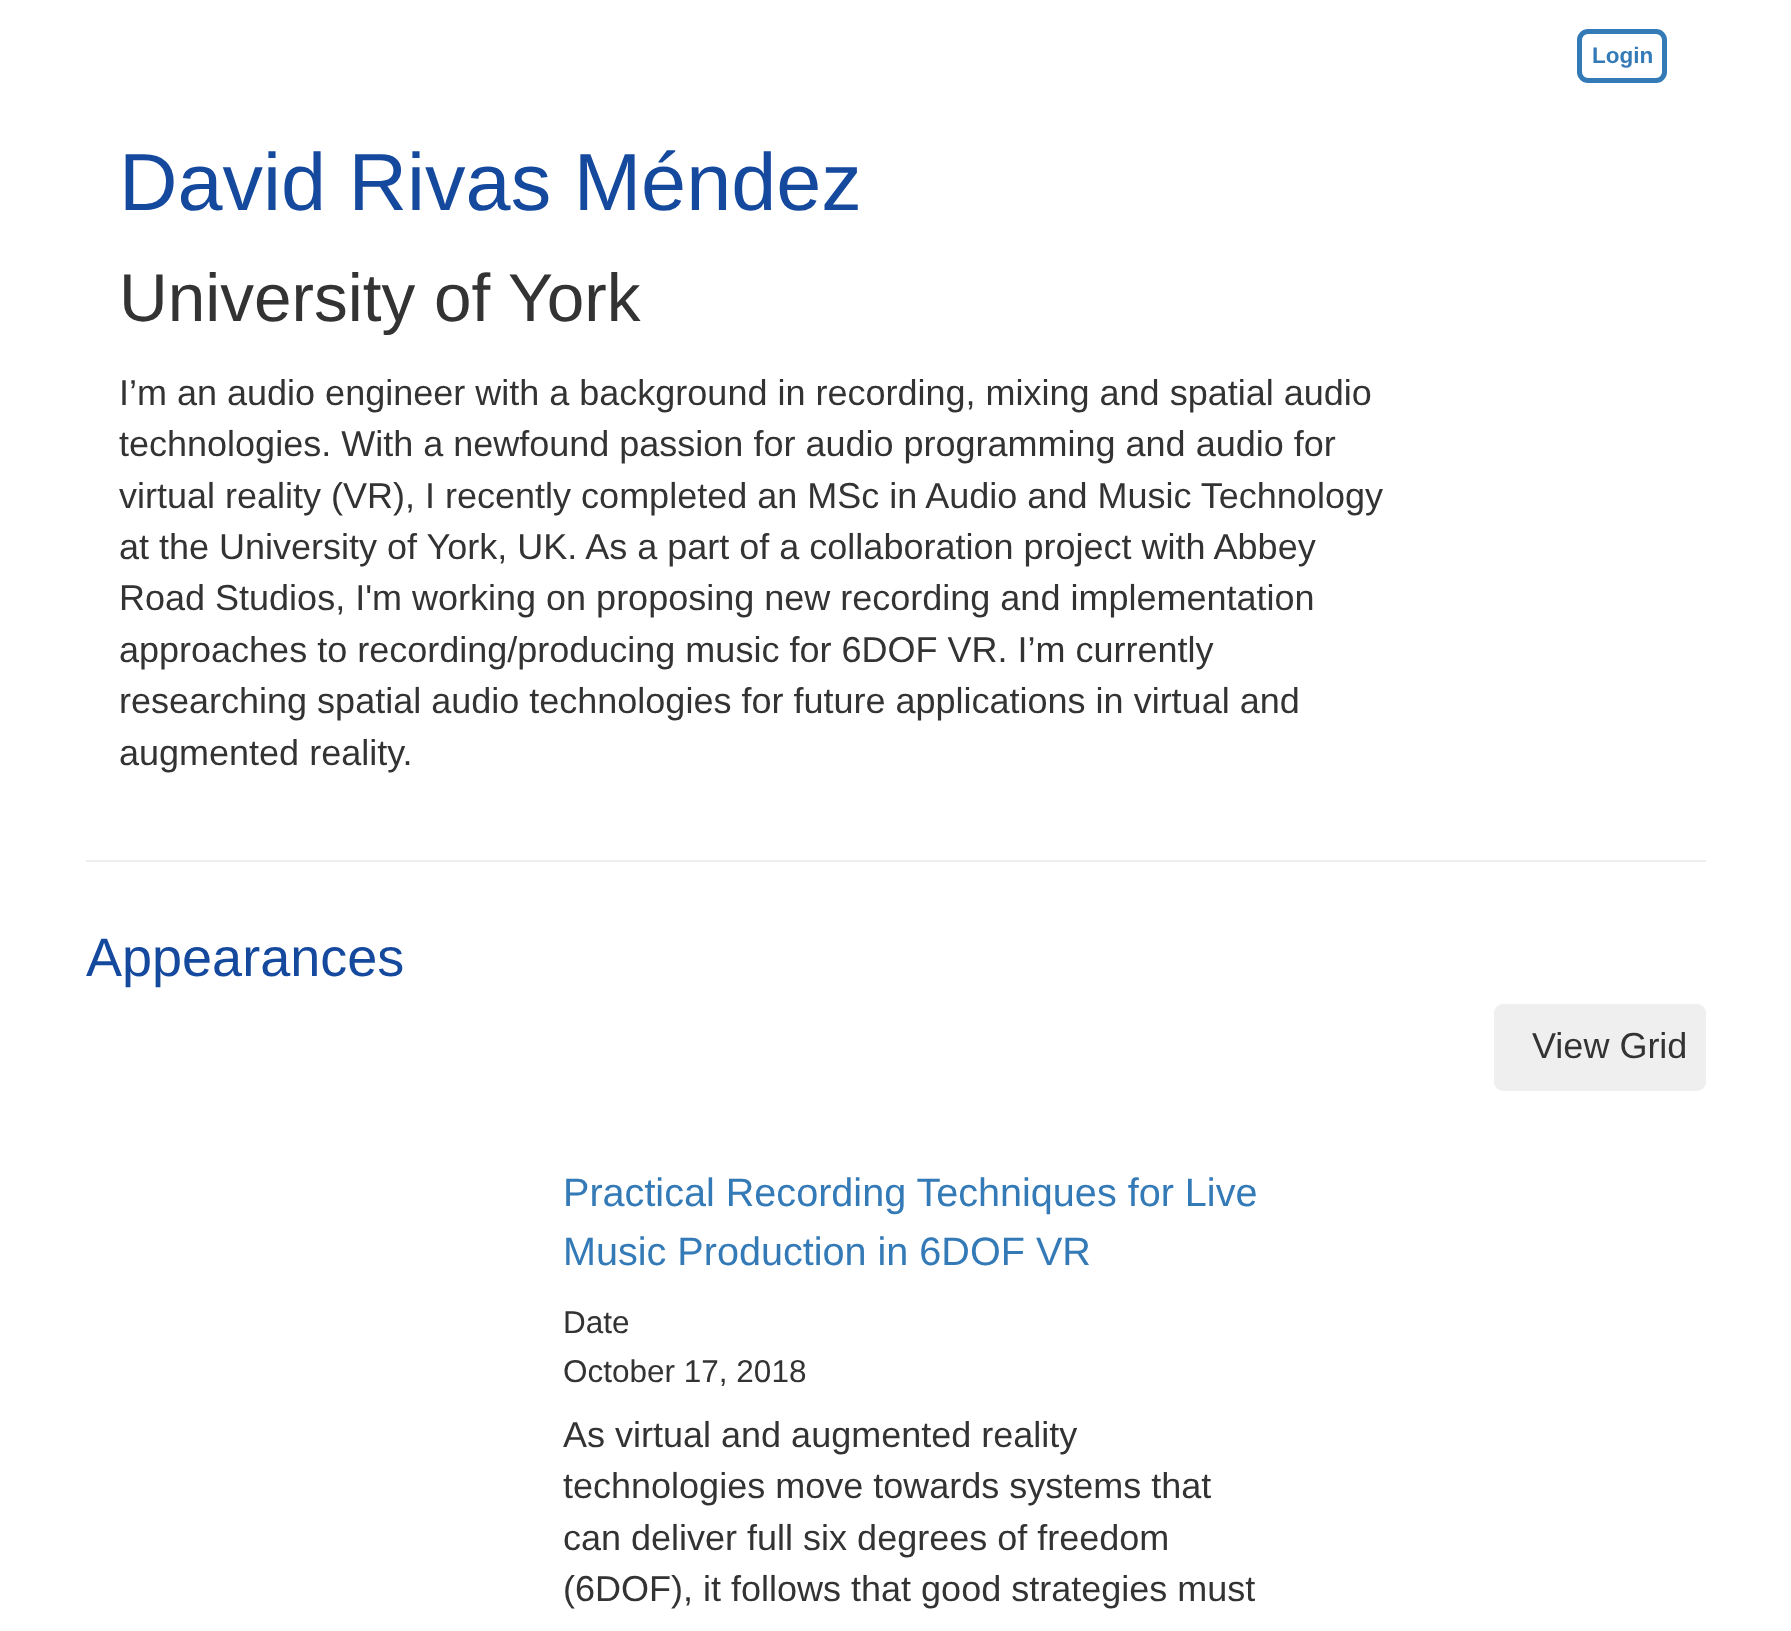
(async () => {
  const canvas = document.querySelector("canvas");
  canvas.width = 1791;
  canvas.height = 1631;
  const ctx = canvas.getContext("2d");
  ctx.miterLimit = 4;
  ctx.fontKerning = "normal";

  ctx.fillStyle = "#ffffff";
  ctx.fillRect(0, 0, 1791, 1631);
  ctx.beginPath();
  ctx.roundRect(1579.5, 31.5, 85, 49, 8.5);
  ctx.strokeStyle = "#337ab7";
  ctx.lineWidth = 5;
  ctx.stroke();
  ctx.fillStyle = "#eeeeee";
  ctx.fillRect(86, 860, 1620, 2);
  ctx.fillStyle = "#efefef";
  ctx.beginPath();
  ctx.roundRect(1494, 1004, 212, 87, 9);
  ctx.fill();
  ctx.font = "bold 22.5px Liberation Sans";
  ctx.fillStyle = "#337ab7";
  ctx.fillText("Login", 1592, 63);
  ctx.font = "81px Liberation Sans";
  ctx.fillStyle = "#14499e";
  ctx.fillText("David Rivas Méndez", 119, 210);
  ctx.font = "67.5px Liberation Sans";
  ctx.fillStyle = "#333333";
  ctx.fillText("University of York", 119, 321);
  ctx.font = "36px Liberation Sans";
  for (const [text, x, y] of [
    ["I’m an audio engineer with a background in recording, mixing and spatial audio", 119, 405],
    ["technologies. With a newfound passion for audio programming and audio for", 119, 456],
    ["virtual reality (VR), I recently completed an MSc in Audio and Music Technology", 119, 508],
    ["at the University of York, UK. As a part of a collaboration project with Abbey", 119, 559],
    ["Road Studios, I'm working on proposing new recording and implementation", 119, 610],
    ["approaches to recording/producing music for 6DOF VR. I’m currently", 119, 662],
    ["researching spatial audio technologies for future applications in virtual and", 119, 713],
    ["augmented reality.", 119, 765],
  ]) {
    ctx.fillText(text, x, y);
  }
  ctx.font = "54px Liberation Sans";
  ctx.fillStyle = "#14499e";
  ctx.fillText("Appearances", 86, 976);
  ctx.font = "36px Liberation Sans";
  ctx.fillStyle = "#333333";
  ctx.fillText("View Grid", 1532, 1058);
  ctx.font = "39.6px Liberation Sans";
  ctx.fillStyle = "#337ab7";
  ctx.fillText("Practical Recording Techniques for Live", 563, 1206);
  ctx.fillText("Music Production in 6DOF VR", 563, 1265);
  ctx.font = "31.5px Liberation Sans";
  ctx.fillStyle = "#333333";
  ctx.fillText("Date", 563, 1333);
  ctx.fillText("October 17, 2018", 563, 1382);
  ctx.font = "36px Liberation Sans";
  for (const [text, x, y] of [
    ["As virtual and augmented reality", 563, 1447],
    ["technologies move towards systems that", 563, 1498],
    ["can deliver full six degrees of freedom", 563, 1550],
    ["(6DOF), it follows that good strategies must", 563, 1601],
  ]) {
    ctx.fillText(text, x, y);
  }
})();
